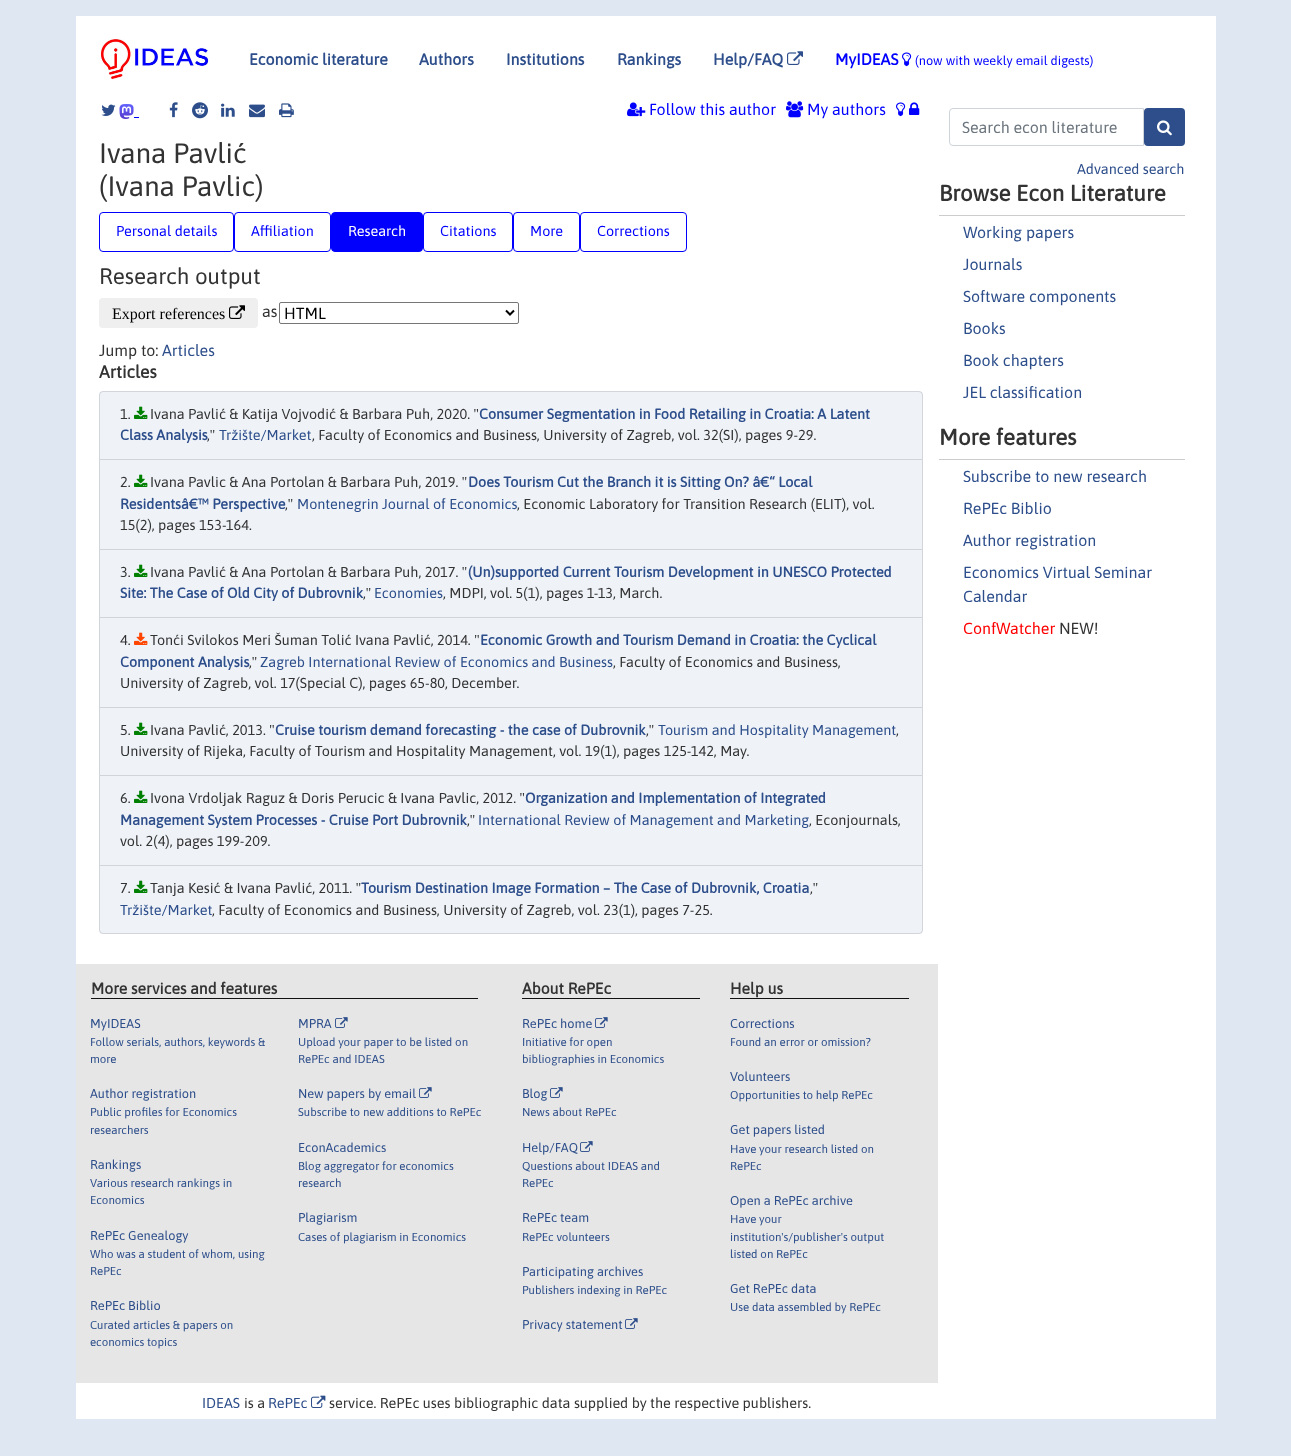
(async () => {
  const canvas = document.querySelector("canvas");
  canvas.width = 1291;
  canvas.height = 1456;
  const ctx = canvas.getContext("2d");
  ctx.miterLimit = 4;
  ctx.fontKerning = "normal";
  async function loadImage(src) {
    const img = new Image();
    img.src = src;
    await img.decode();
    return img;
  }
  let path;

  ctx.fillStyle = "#dfe7f2";
  ctx.fillRect(0, 0, 1291, 1456);
  ctx.fillStyle = "#ffffff";
  ctx.fillRect(76, 16, 1140, 1403);
  ctx.drawImage(await loadImage("img/1.png"), 100, 39, 109, 40);
  ctx.drawImage(await loadImage("img/2.png"), 787, 51, 16, 14);
  ctx.drawImage(await loadImage("img/3.png"), 902, 52, 10, 15);
  ctx.drawImage(await loadImage("img/4.png"), 101, 104, 15, 12);
  ctx.drawImage(await loadImage("img/5.png"), 119, 104, 15, 15);
  ctx.fillStyle = "#0000ff";
  ctx.fillRect(134, 117, 5, 1);
  ctx.drawImage(await loadImage("img/6.png"), 169, 102, 9, 16);
  ctx.drawImage(await loadImage("img/7.png"), 192, 102, 16, 17);
  ctx.drawImage(await loadImage("img/8.png"), 221, 103, 14, 14);
  ctx.drawImage(await loadImage("img/9.png"), 249, 104, 16, 14);
  ctx.drawImage(await loadImage("img/10.png"), 279, 103, 15, 15);
  ctx.drawImage(await loadImage("img/11.png"), 627, 102, 19, 15);
  ctx.drawImage(await loadImage("img/12.png"), 786, 101, 18, 17);
  ctx.drawImage(await loadImage("img/13.png"), 896, 102, 10, 15);
  ctx.drawImage(await loadImage("img/14.png"), 909, 102, 11, 13);
  ctx.beginPath();
  ctx.roundRect(99.5, 212.5, 134, 39, 3.5);
  ctx.strokeStyle = "#0000fc";
  ctx.stroke();
  ctx.beginPath();
  ctx.roundRect(234.5, 212.5, 96, 39, 3.5);
  ctx.stroke();
  ctx.fillStyle = "#0000fc";
  ctx.beginPath();
  ctx.roundRect(331.5, 212.5, 91, 39, 3.5);
  ctx.fill();
  ctx.stroke();
  ctx.beginPath();
  ctx.roundRect(423.5, 212.5, 89, 39, 3.5);
  ctx.stroke();
  ctx.beginPath();
  ctx.roundRect(513.5, 212.5, 66, 39, 3.5);
  ctx.stroke();
  ctx.beginPath();
  ctx.roundRect(580.5, 212.5, 106, 39, 3.5);
  ctx.stroke();
  ctx.fillStyle = "#efefef";
  ctx.beginPath();
  ctx.roundRect(99, 298, 159, 30, 4);
  ctx.fill();
  ctx.drawImage(await loadImage("img/15.png"), 229, 305, 16, 14);
  ctx.beginPath();
  ctx.roundRect(279.5, 302.5, 239, 21, 1.5);
  ctx.strokeStyle = "#767676";
  ctx.stroke();
  path = new Path2D("M506 310.5L510 314.5L514 310.5");
  ctx.strokeStyle = "#000000";
  ctx.lineWidth = 2;
  ctx.stroke(path);
  ctx.fillStyle = "#eff3f8";
  ctx.beginPath();
  ctx.roundRect(99, 391, 824, 69, [4, 4, 0, 0]);
  ctx.fill();
  ctx.beginPath();
  ctx.roundRect(99.5, 391.5, 823, 68, [3.5, 3.5, 0, 0]);
  ctx.strokeStyle = "rgba(0, 0, 0, 0.12)";
  ctx.lineWidth = 1;
  ctx.stroke();
  ctx.drawImage(await loadImage("img/16.png"), 134, 406, 14, 13);
  ctx.beginPath();
  ctx.rect(99.5, 459.5, 823, 90);
  ctx.fill();
  ctx.strokeStyle = "#d1d5d9";
  ctx.stroke();
  ctx.drawImage(await loadImage("img/16.png"), 134, 474, 14, 13);
  ctx.beginPath();
  ctx.rect(99.5, 549.5, 823, 68);
  ctx.fill();
  ctx.stroke();
  ctx.drawImage(await loadImage("img/16.png"), 134, 564, 14, 13);
  ctx.beginPath();
  ctx.rect(99.5, 617.5, 823, 90);
  ctx.fill();
  ctx.stroke();
  ctx.drawImage(await loadImage("img/17.png"), 134, 632, 14, 13);
  ctx.beginPath();
  ctx.rect(99.5, 707.5, 823, 68);
  ctx.fill();
  ctx.stroke();
  ctx.drawImage(await loadImage("img/16.png"), 134, 722, 14, 13);
  ctx.beginPath();
  ctx.rect(99.5, 775.5, 823, 90);
  ctx.fill();
  ctx.stroke();
  ctx.drawImage(await loadImage("img/16.png"), 134, 790, 14, 13);
  ctx.beginPath();
  ctx.roundRect(99, 865, 824, 69, [0, 0, 4, 4]);
  ctx.fill();
  ctx.beginPath();
  ctx.roundRect(99.5, 865.5, 823, 68, [0, 0, 3.5, 3.5]);
  ctx.strokeStyle = "rgba(0, 0, 0, 0.12)";
  ctx.stroke();
  ctx.drawImage(await loadImage("img/16.png"), 134, 880, 14, 13);
  ctx.fillStyle = "#e6e6e6";
  ctx.fillRect(76, 964, 862, 419);
  ctx.fillStyle = "#111111";
  ctx.fillRect(91, 998, 387, 1);
  ctx.drawImage(await loadImage("img/18.png"), 335, 1017, 13, 11);
  ctx.drawImage(await loadImage("img/18.png"), 419, 1087, 13, 11);
  ctx.fillRect(522, 998, 178, 1);
  ctx.drawImage(await loadImage("img/18.png"), 595, 1017, 13, 11);
  ctx.drawImage(await loadImage("img/18.png"), 550, 1087, 13, 11);
  ctx.drawImage(await loadImage("img/18.png"), 580, 1141, 13, 11);
  ctx.drawImage(await loadImage("img/18.png"), 625, 1318, 13, 11);
  ctx.fillRect(730, 998, 179, 1);
  ctx.drawImage(await loadImage("img/19.png"), 311, 1395, 15, 13);
  ctx.beginPath();
  ctx.roundRect(949.5, 108.5, 194, 37, [3.5, 0, 0, 3.5]);
  ctx.strokeStyle = "#ced4da";
  ctx.stroke();
  ctx.fillStyle = "#2d4e8b";
  ctx.beginPath();
  ctx.roundRect(1144, 108, 41, 38, 4);
  ctx.fill();
  ctx.drawImage(await loadImage("img/20.png"), 1157, 120, 15, 16);
  ctx.fillStyle = "#cccccc";
  ctx.fillRect(939, 215, 246, 1);
  ctx.fillRect(939, 459, 246, 1);
  ctx.font = "bold 16px Asap";
  ctx.fillStyle = "#2d4e8b";
  for (const [text, x, y] of [
    ["Economic literature", 249, 65],
    ["Authors", 419, 65],
    ["Institutions", 506, 65],
    ["Rankings", 617, 65],
    ["Help/FAQ", 713, 65],
  ]) {
    ctx.fillText(text, x, y);
  }
  ctx.fillStyle = "#0000ff";
  ctx.fillText("MyIDEAS", 835, 65);
  ctx.font = "12.75px Asap";
  ctx.fillText("(now with weekly email digests)", 915, 65);
  ctx.font = "16px Asap";
  ctx.fillText("Follow this author", 649, 115);
  ctx.fillText("My authors", 807, 115);
  ctx.font = "28px Asap";
  ctx.fillStyle = "#333333";
  ctx.fillText("Ivana Pavlić", 99, 163);
  ctx.fillText("(Ivana Pavlic)", 99, 196);
  ctx.font = "14.4px Asap";
  ctx.fillStyle = "#0000ff";
  ctx.fillText("Personal details", 116, 236);
  ctx.fillText("Affiliation", 251, 236);
  ctx.fillStyle = "#ffffff";
  ctx.fillText("Research", 348, 236);
  ctx.fillStyle = "#0000ff";
  for (const [text, x, y] of [
    ["Citations", 440, 236],
    ["More", 530, 236],
    ["Corrections", 597, 236],
  ]) {
    ctx.fillText(text, x, y);
  }
  ctx.font = "22.4px Asap";
  ctx.fillStyle = "#333333";
  ctx.fillText("Research output", 99, 284);
  ctx.font = "16px Liberation Serif";
  ctx.fillStyle = "#000000";
  ctx.fillText("Export references", 112, 319);
  ctx.font = "16px Asap";
  ctx.fillStyle = "#333333";
  ctx.fillText("as", 262, 317);
  ctx.fillStyle = "#000000";
  ctx.fillText("HTML", 284, 319);
  ctx.fillStyle = "#333333";
  ctx.fillText("Jump to:", 99, 356);
  ctx.fillStyle = "#2d4e8b";
  ctx.fillText("Articles", 162, 356);
  ctx.font = "bold 17.5px Asap";
  ctx.fillStyle = "#333333";
  ctx.fillText("Articles", 99, 378);
  ctx.font = "14.4px Asap";
  ctx.fillText("1.", 120, 419);
  ctx.fillText("Ivana Pavlić & Katija Vojvodić & Barbara Puh, 2020. \"", 150, 419);
  ctx.font = "bold 14.4px Asap";
  ctx.fillStyle = "#2d4e8b";
  ctx.fillText("Consumer Segmentation in Food Retailing in Croatia: A Latent", 479, 419);
  ctx.fillText("Class Analysis", 120, 440);
  ctx.font = "14.4px Asap";
  ctx.fillStyle = "#333333";
  ctx.fillText(",\"", 207, 440);
  ctx.fillStyle = "#2d4e8b";
  ctx.fillText("Tržište/Market", 219, 440);
  ctx.fillStyle = "#333333";
  for (const [text, x, y] of [
    [", Faculty of Economics and Business, University of Zagreb, vol. 32(SI), pages 9-29.", 312, 440],
    ["2.", 120, 487],
    ["Ivana Pavlic & Ana Portolan & Barbara Puh, 2019. \"", 150, 487],
  ]) {
    ctx.fillText(text, x, y);
  }
  ctx.font = "bold 14.4px Asap";
  ctx.fillStyle = "#2d4e8b";
  ctx.fillText("Does Tourism Cut the Branch it is Sitting On? â€“ Local", 468, 487);
  ctx.fillText("Residentsâ€™ Perspective", 120, 509);
  ctx.font = "14.4px Asap";
  ctx.fillStyle = "#333333";
  ctx.fillText(",\"", 285, 509);
  ctx.fillStyle = "#2d4e8b";
  ctx.fillText("Montenegrin Journal of Economics", 297, 509);
  ctx.fillStyle = "#333333";
  for (const [text, x, y] of [
    [", Economic Laboratory for Transition Research (ELIT), vol.", 517, 509],
    ["15(2), pages 153-164.", 120, 530],
    ["3.", 120, 577],
    ["Ivana Pavlić & Ana Portolan & Barbara Puh, 2017. \"", 150, 577],
  ]) {
    ctx.fillText(text, x, y);
  }
  ctx.font = "bold 14.4px Asap";
  ctx.fillStyle = "#2d4e8b";
  ctx.fillText("(Un)supported Current Tourism Development in UNESCO Protected", 468, 577);
  ctx.fillText("Site: The Case of Old City of Dubrovnik", 120, 598);
  ctx.font = "14.4px Asap";
  ctx.fillStyle = "#333333";
  ctx.fillText(",\"", 363, 598);
  ctx.fillStyle = "#2d4e8b";
  ctx.fillText("Economies", 374, 598);
  ctx.fillStyle = "#333333";
  for (const [text, x, y] of [
    [", MDPI, vol. 5(1), pages 1-13, March.", 443, 598],
    ["4.", 120, 645],
    ["Tonći Svilokos Meri Šuman Tolić Ivana Pavlić, 2014. \"", 150, 645],
  ]) {
    ctx.fillText(text, x, y);
  }
  ctx.font = "bold 14.4px Asap";
  ctx.fillStyle = "#2d4e8b";
  ctx.fillText("Economic Growth and Tourism Demand in Croatia: the Cyclical", 480, 645);
  ctx.fillText("Component Analysis", 120, 667);
  ctx.font = "14.4px Asap";
  ctx.fillStyle = "#333333";
  ctx.fillText(",\"", 249, 667);
  ctx.fillStyle = "#2d4e8b";
  ctx.fillText("Zagreb International Review of Economics and Business", 260, 667);
  ctx.fillStyle = "#333333";
  for (const [text, x, y] of [
    [", Faculty of Economics and Business,", 613, 667],
    ["University of Zagreb, vol. 17(Special C), pages 65-80, December.", 120, 688],
    ["5.", 120, 735],
    ["Ivana Pavlić, 2013. \"", 150, 735],
  ]) {
    ctx.fillText(text, x, y);
  }
  ctx.font = "bold 14.4px Asap";
  ctx.fillStyle = "#2d4e8b";
  ctx.fillText("Cruise tourism demand forecasting - the case of Dubrovnik", 275, 735);
  ctx.font = "14.4px Asap";
  ctx.fillStyle = "#333333";
  ctx.fillText(",\"", 646, 735);
  ctx.fillStyle = "#2d4e8b";
  ctx.fillText("Tourism and Hospitality Management", 658, 735);
  ctx.fillStyle = "#333333";
  for (const [text, x, y] of [
    [",", 896, 735],
    ["University of Rijeka, Faculty of Tourism and Hospitality Management, vol. 19(1), pages 125-142, May.", 120, 756],
    ["6.", 120, 803],
    ["Ivona Vrdoljak Raguz & Doris Perucic & Ivana Pavlic, 2012. \"", 150, 803],
  ]) {
    ctx.fillText(text, x, y);
  }
  ctx.font = "bold 14.4px Asap";
  ctx.fillStyle = "#2d4e8b";
  ctx.fillText("Organization and Implementation of Integrated", 525, 803);
  ctx.fillText("Management System Processes - Cruise Port Dubrovnik", 120, 825);
  ctx.font = "14.4px Asap";
  ctx.fillStyle = "#333333";
  ctx.fillText(",\"", 467, 825);
  ctx.fillStyle = "#2d4e8b";
  ctx.fillText("International Review of Management and Marketing", 478, 825);
  ctx.fillStyle = "#333333";
  for (const [text, x, y] of [
    [", Econjournals,", 809, 825],
    ["vol. 2(4), pages 199-209.", 120, 846],
    ["7.", 120, 893],
    ["Tanja Kesić & Ivana Pavlić, 2011. \"", 150, 893],
  ]) {
    ctx.fillText(text, x, y);
  }
  ctx.font = "bold 14.4px Asap";
  ctx.fillStyle = "#2d4e8b";
  ctx.fillText("Tourism Destination Image Formation – The Case of Dubrovnik, Croatia", 361, 893);
  ctx.font = "14.4px Asap";
  ctx.fillStyle = "#333333";
  ctx.fillText(",\"", 810, 893);
  ctx.fillStyle = "#2d4e8b";
  ctx.fillText("Tržište/Market", 120, 915);
  ctx.fillStyle = "#333333";
  ctx.fillText(", Faculty of Economics and Business, University of Zagreb, vol. 23(1), pages 7-25.", 212, 915);
  ctx.font = "bold 15.8px Asap";
  ctx.fillText("More services and features", 91, 994);
  ctx.font = "12.75px Asap";
  ctx.fillStyle = "#2d4e8b";
  ctx.fillText("MyIDEAS", 90, 1028);
  ctx.font = "11.5px Asap";
  ctx.fillText("Follow serials, authors, keywords &", 90, 1046);
  ctx.fillText("more", 90, 1063);
  ctx.font = "12.75px Asap";
  ctx.fillText("Author registration", 90, 1098);
  ctx.font = "11.5px Asap";
  ctx.fillText("Public profiles for Economics", 90, 1116);
  ctx.fillText("researchers", 90, 1134);
  ctx.font = "12.75px Asap";
  ctx.fillText("Rankings", 90, 1169);
  ctx.font = "11.5px Asap";
  ctx.fillText("Various research rankings in", 90, 1187);
  ctx.fillText("Economics", 90, 1204);
  ctx.font = "12.75px Asap";
  ctx.fillText("RePEc Genealogy", 90, 1240);
  ctx.font = "11.5px Asap";
  ctx.fillText("Who was a student of whom, using", 90, 1258);
  ctx.fillText("RePEc", 90, 1275);
  ctx.font = "12.75px Asap";
  ctx.fillText("RePEc Biblio", 90, 1310);
  ctx.font = "11.5px Asap";
  ctx.fillText("Curated articles & papers on", 90, 1329);
  ctx.fillText("economics topics", 90, 1346);
  ctx.font = "12.75px Asap";
  ctx.fillText("MPRA", 298, 1028);
  ctx.font = "11.5px Asap";
  ctx.fillText("Upload your paper to be listed on", 298, 1046);
  ctx.fillText("RePEc and IDEAS", 298, 1063);
  ctx.font = "12.75px Asap";
  ctx.fillText("New papers by email", 298, 1098);
  ctx.font = "11.5px Asap";
  ctx.fillText("Subscribe to new additions to RePEc", 298, 1116);
  ctx.font = "12.75px Asap";
  ctx.fillText("EconAcademics", 298, 1152);
  ctx.font = "11.5px Asap";
  ctx.fillText("Blog aggregator for economics", 298, 1170);
  ctx.fillText("research", 298, 1187);
  ctx.font = "12.75px Asap";
  ctx.fillText("Plagiarism", 298, 1222);
  ctx.font = "11.5px Asap";
  ctx.fillText("Cases of plagiarism in Economics", 298, 1241);
  ctx.font = "bold 15.8px Asap";
  ctx.fillStyle = "#333333";
  ctx.fillText("About RePEc", 522, 994);
  ctx.font = "12.75px Asap";
  ctx.fillStyle = "#2d4e8b";
  ctx.fillText("RePEc home", 522, 1028);
  ctx.font = "11.5px Asap";
  ctx.fillText("Initiative for open", 522, 1046);
  ctx.fillText("bibliographies in Economics", 522, 1063);
  ctx.font = "12.75px Asap";
  ctx.fillText("Blog", 522, 1098);
  ctx.font = "11.5px Asap";
  ctx.fillText("News about RePEc", 522, 1116);
  ctx.font = "12.75px Asap";
  ctx.fillText("Help/FAQ", 522, 1152);
  ctx.font = "11.5px Asap";
  ctx.fillText("Questions about IDEAS and", 522, 1170);
  ctx.fillText("RePEc", 522, 1187);
  ctx.font = "12.75px Asap";
  ctx.fillText("RePEc team", 522, 1222);
  ctx.font = "11.5px Asap";
  ctx.fillText("RePEc volunteers", 522, 1241);
  ctx.font = "12.75px Asap";
  ctx.fillText("Participating archives", 522, 1276);
  ctx.font = "11.5px Asap";
  ctx.fillText("Publishers indexing in RePEc", 522, 1294);
  ctx.font = "12.75px Asap";
  ctx.fillText("Privacy statement", 522, 1329);
  ctx.font = "bold 15.8px Asap";
  ctx.fillStyle = "#333333";
  ctx.fillText("Help us", 730, 994);
  ctx.font = "12.75px Asap";
  ctx.fillStyle = "#2d4e8b";
  ctx.fillText("Corrections", 730, 1028);
  ctx.font = "11.5px Asap";
  ctx.fillText("Found an error or omission?", 730, 1046);
  ctx.font = "12.75px Asap";
  ctx.fillText("Volunteers", 730, 1081);
  ctx.font = "11.5px Asap";
  ctx.fillText("Opportunities to help RePEc", 730, 1099);
  ctx.font = "12.75px Asap";
  ctx.fillText("Get papers listed", 730, 1134);
  ctx.font = "11.5px Asap";
  ctx.fillText("Have your research listed on", 730, 1153);
  ctx.fillText("RePEc", 730, 1170);
  ctx.font = "12.75px Asap";
  ctx.fillText("Open a RePEc archive", 730, 1205);
  ctx.font = "11.5px Asap";
  for (const [text, x, y] of [
    ["Have your", 730, 1223],
    ["institution's/publisher's output", 730, 1241],
    ["listed on RePEc", 730, 1258],
  ]) {
    ctx.fillText(text, x, y);
  }
  ctx.font = "12.75px Asap";
  ctx.fillText("Get RePEc data", 730, 1293);
  ctx.font = "11.5px Asap";
  ctx.fillText("Use data assembled by RePEc", 730, 1311);
  ctx.font = "14.4px Asap";
  ctx.fillText("IDEAS", 202, 1408);
  ctx.fillStyle = "#333333";
  ctx.fillText("is a", 244, 1408);
  ctx.fillStyle = "#2d4e8b";
  ctx.fillText("RePEc", 268, 1408);
  ctx.fillStyle = "#333333";
  ctx.fillText("service. RePEc uses bibliographic data supplied by the respective publishers.", 329, 1408);
  ctx.font = "16px Asap";
  ctx.fillStyle = "#6c757d";
  ctx.fillText("Search econ literature", 962, 133);
  ctx.font = "14.4px Asap";
  ctx.fillStyle = "#2d4e8b";
  ctx.fillText("Advanced search", 1077, 174);
  ctx.font = "bold 22.4px Asap";
  ctx.fillStyle = "#333333";
  ctx.fillText("Browse Econ Literature", 939, 201);
  ctx.font = "16px Asap";
  ctx.fillStyle = "#2d4e8b";
  for (const [text, x, y] of [
    ["Working papers", 963, 238],
    ["Journals", 963, 270],
    ["Software components", 963, 302],
    ["Books", 963, 334],
    ["Book chapters", 963, 366],
    ["JEL classification", 963, 398],
  ]) {
    ctx.fillText(text, x, y);
  }
  ctx.font = "bold 22.4px Asap";
  ctx.fillStyle = "#333333";
  ctx.fillText("More features", 939, 445);
  ctx.font = "16px Asap";
  ctx.fillStyle = "#2d4e8b";
  for (const [text, x, y] of [
    ["Subscribe to new research", 963, 482],
    ["RePEc Biblio", 963, 514],
    ["Author registration", 963, 546],
    ["Economics Virtual Seminar", 963, 578],
    ["Calendar", 963, 602],
  ]) {
    ctx.fillText(text, x, y);
  }
  ctx.fillStyle = "#ff0000";
  ctx.fillText("ConfWatcher", 963, 634);
  ctx.fillStyle = "#333333";
  ctx.fillText("NEW!", 1059, 634);
})();
